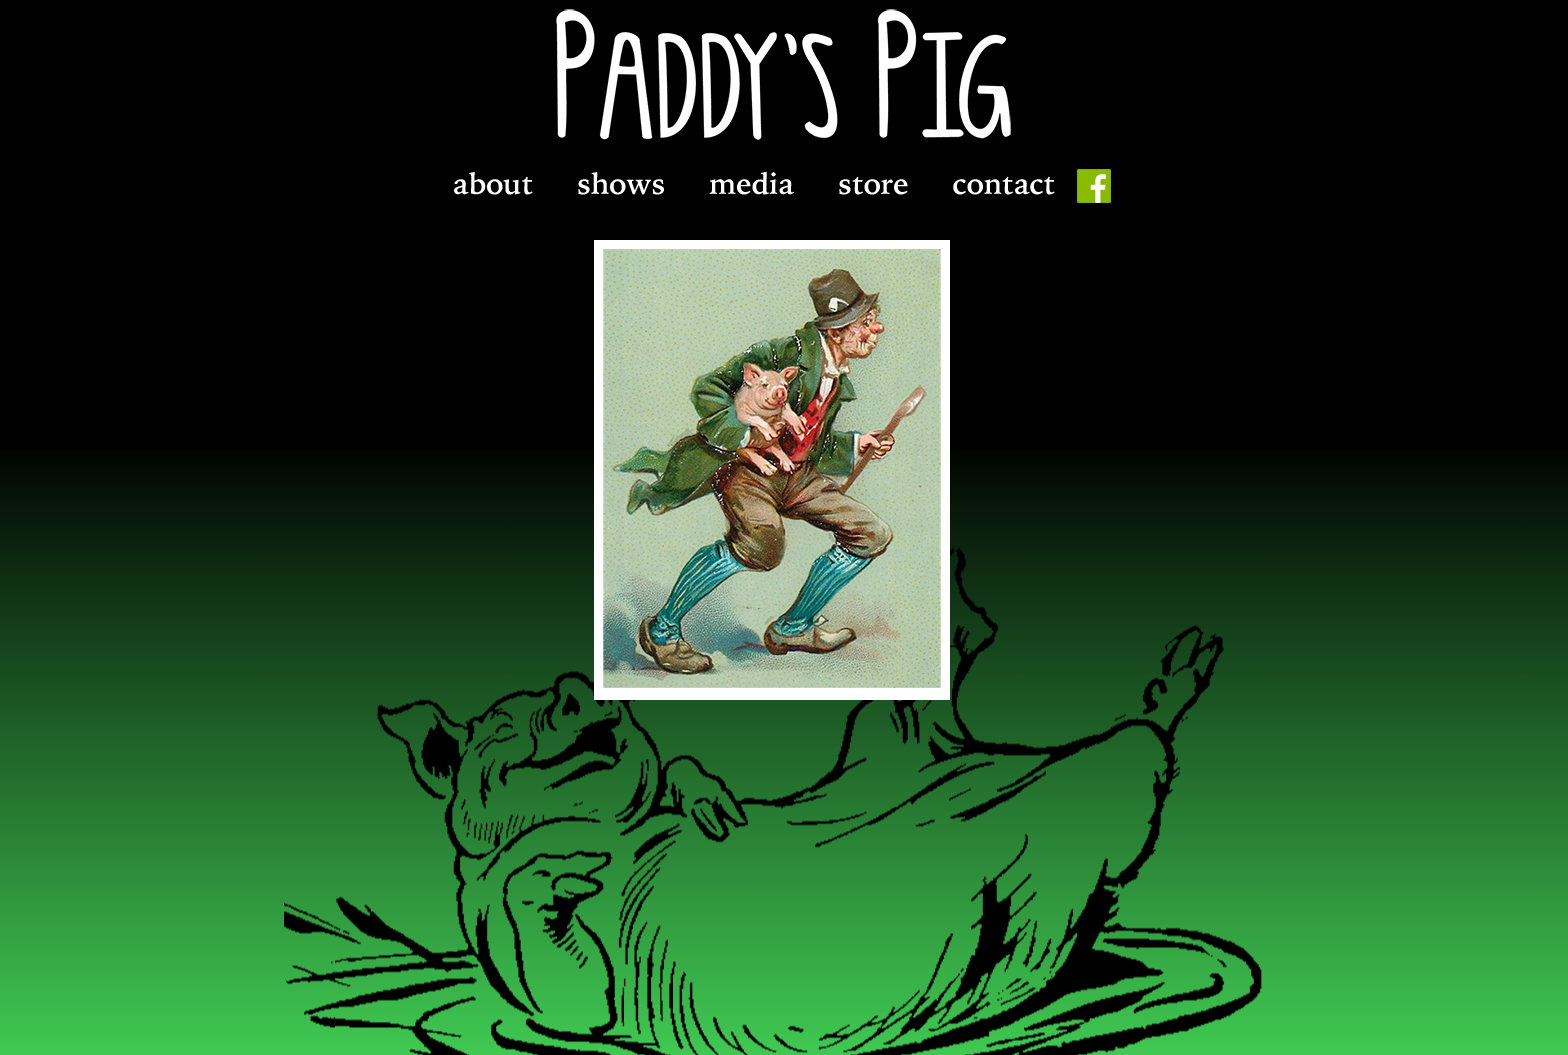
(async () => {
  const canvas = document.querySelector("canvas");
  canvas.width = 1568;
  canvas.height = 1055;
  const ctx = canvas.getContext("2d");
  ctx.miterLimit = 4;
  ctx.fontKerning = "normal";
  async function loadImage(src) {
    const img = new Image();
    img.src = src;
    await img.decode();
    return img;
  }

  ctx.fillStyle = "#000000";
  ctx.fillRect(0, 0, 1568, 1055);
  ctx.drawImage(await loadImage("img/1.png"), 0, 450, 1568, 605);
  ctx.drawImage(await loadImage("img/2.png"), 556, 9, 455, 131);
  ctx.drawImage(await loadImage("img/3.png"), 454, 169, 657, 34);
  ctx.drawImage(await loadImage("img/4.png"), 594, 240, 356, 460);
})();
